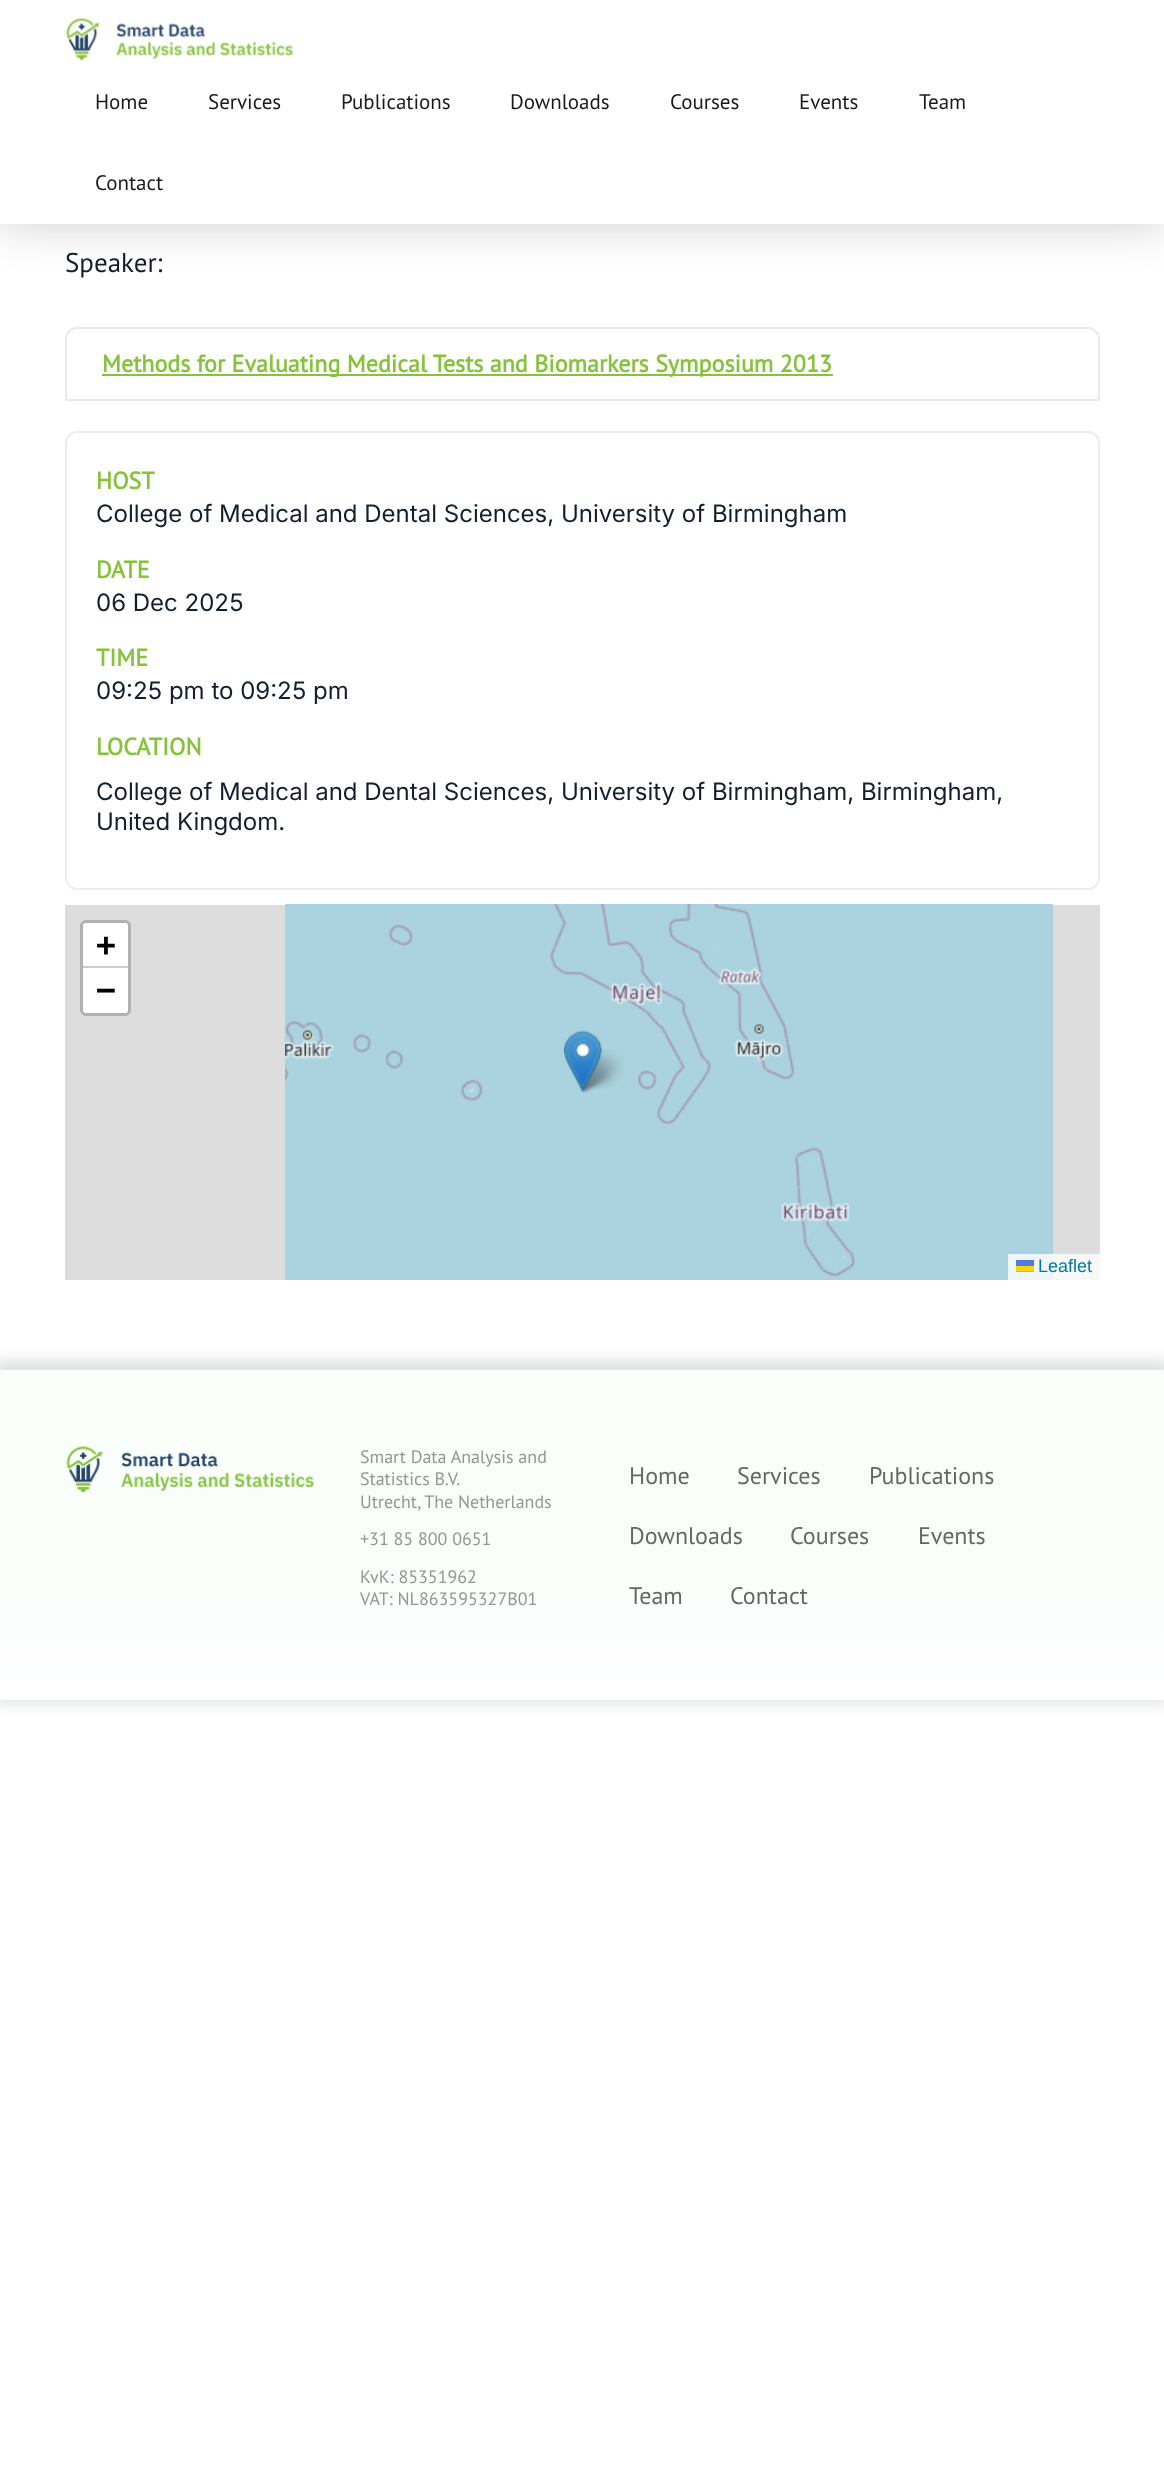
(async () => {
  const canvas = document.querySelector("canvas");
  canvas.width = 1164;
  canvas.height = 2482;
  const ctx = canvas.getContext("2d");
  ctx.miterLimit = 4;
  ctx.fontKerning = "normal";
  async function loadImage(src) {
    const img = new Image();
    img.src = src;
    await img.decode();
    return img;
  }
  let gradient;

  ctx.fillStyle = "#ffffff";
  ctx.fillRect(0, 0, 1164, 2482);
  ctx.fillStyle = "rgba(0, 0, 0, 0.2)";
  ctx.filter = "blur(22.5px)";
  ctx.beginPath();
  ctx.rect(0, 0, 1164, 224);
  ctx.fill();
  ctx.filter = "none";
  ctx.fillStyle = "#ffffff";
  ctx.fillRect(0, 0, 1164, 224);
  ctx.drawImage(await loadImage("img/1.png"), 66, 17, 228, 44);
  ctx.beginPath();
  ctx.roundRect(66, 328, 1033, 72, [11, 11, 0, 0]);
  ctx.strokeStyle = "#eaeaea";
  ctx.lineWidth = 2;
  ctx.stroke();
  ctx.fillStyle = "#85c33c";
  ctx.fillRect(102, 374, 731, 2);
  ctx.beginPath();
  ctx.roundRect(66, 432, 1033, 457, 11);
  ctx.strokeStyle = "#ededed";
  ctx.stroke();
  ctx.fillStyle = "#dddddd";
  ctx.fillRect(65, 905, 1035, 375);
  ctx.drawImage(await loadImage("img/2.png"), 285, 904, 384, 368);
  ctx.drawImage(await loadImage("img/3.png"), 669, 904, 384, 368);
  ctx.fillStyle = "#aad3df";
  ctx.fillRect(285, 1272, 384, 8);
  ctx.drawImage(await loadImage("img/4.png"), 669, 1272, 384, 8);
  ctx.drawImage(await loadImage("img/6.png"), 577, 1049, 46, 44);
  ctx.drawImage(await loadImage("img/5.png"), 564, 1030, 38, 63);
  ctx.beginPath();
  ctx.roundRect(81.5, 921.5, 48, 93, 4.5);
  ctx.strokeStyle = "#b1b1b1";
  ctx.lineWidth = 3;
  ctx.stroke();
  ctx.fillStyle = "#ffffff";
  ctx.beginPath();
  ctx.roundRect(83, 923, 45, 45, [3, 3, 0, 0]);
  ctx.fill();
  ctx.fillStyle = "#cccccc";
  ctx.fillRect(83, 966, 45, 2);
  ctx.fillStyle = "#ffffff";
  ctx.beginPath();
  ctx.roundRect(83, 968, 45, 45, [0, 0, 3, 3]);
  ctx.fill();
  for (const [x, y, w, h, color] of [
    [1008, 1254, 92, 26, "rgba(255, 255, 255, 0.8)"],
    [1016, 1260, 18, 6, "#4c7be1"],
    [1016, 1266, 18, 5, "#ffd500"],
    [1016, 1271, 18, 1, "#e0bc00"],
  ]) {
    ctx.fillStyle = color;
    ctx.fillRect(x, y, w, h);
  }
  ctx.fillStyle = "rgba(210, 214, 212, 0.75)";
  ctx.filter = "blur(7.5px)";
  ctx.beginPath();
  ctx.rect(-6, 1361, 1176, 342);
  ctx.fill();
  ctx.filter = "none";
  gradient = ctx.createLinearGradient(582, 1370, 582, 1700);
  gradient.addColorStop(0.59, "#f9fefb");
  gradient.addColorStop(1, "#ffffff");
  ctx.fillStyle = gradient;
  ctx.fillRect(0, 1370, 1164, 330);
  ctx.drawImage(await loadImage("img/7.png"), 66, 1446, 248, 47);
  ctx.font = "21px PT Sans";
  ctx.fillStyle = "#1a1a1a";
  for (const [text, x, y] of [
    ["Home", 95, 109],
    ["Services", 208, 109],
    ["Publications", 341, 109],
    ["Downloads", 510, 109],
    ["Courses", 670, 109],
    ["Events", 799, 109],
    ["Team", 919, 109],
    ["Contact", 95, 190],
  ]) {
    ctx.fillText(text, x, y);
  }
  ctx.font = "27px PT Sans";
  ctx.fillStyle = "#151d2e";
  ctx.fillText("Speaker:", 65, 272);
  ctx.font = "bold 24px PT Sans";
  ctx.fillStyle = "#85c33c";
  ctx.fillText("Methods for Evaluating Medical Tests and Biomarkers Symposium 2013", 102, 372);
  ctx.fillText("HOST", 96, 489);
  ctx.font = "24px Inter";
  ctx.fillStyle = "#151d2e";
  ctx.fillText("College of Medical and Dental Sciences, University of Birmingham", 96, 522);
  ctx.font = "bold 24px PT Sans";
  ctx.fillStyle = "#85c33c";
  ctx.fillText("DATE", 96, 578);
  ctx.font = "24px Inter";
  ctx.fillStyle = "#151d2e";
  ctx.fillText("06 Dec 2025", 96, 611);
  ctx.font = "bold 24px PT Sans";
  ctx.fillStyle = "#85c33c";
  ctx.fillText("TIME", 96, 666);
  ctx.font = "24px Inter";
  ctx.fillStyle = "#151d2e";
  ctx.fillText("09:25 pm to 09:25 pm", 96, 699);
  ctx.font = "bold 24px PT Sans";
  ctx.fillStyle = "#85c33c";
  ctx.fillText("LOCATION", 96, 755);
  ctx.font = "24px Inter";
  ctx.fillStyle = "#151d2e";
  ctx.fillText("College of Medical and Dental Sciences, University of Birmingham, Birmingham,", 96, 800);
  ctx.fillText("United Kingdom.", 96, 830);
  ctx.font = "bold 33px DejaVu Sans Mono";
  ctx.fillStyle = "#000000";
  ctx.fillText("+", 96, 956);
  ctx.fillText("−", 96, 1001);
  ctx.font = "18px Liberation Sans";
  ctx.fillStyle = "#0078a8";
  ctx.fillText("Leaflet", 1038, 1272);
  ctx.font = "18px PT Sans";
  ctx.fillStyle = "#949694";
  for (const [text, x, y] of [
    ["Smart Data Analysis and", 360, 1463],
    ["Statistics B.V.", 360, 1485],
    ["Utrecht, The Netherlands", 360, 1508],
    ["+31 85 800 0651", 360, 1545],
    ["KvK: 85351962", 360, 1583],
    ["VAT: NL863595327B01", 360, 1605],
  ]) {
    ctx.fillText(text, x, y);
  }
  ctx.font = "24px PT Sans";
  ctx.fillStyle = "#666666";
  for (const [text, x, y] of [
    ["Home", 629, 1484],
    ["Services", 737, 1484],
    ["Publications", 869, 1484],
    ["Downloads", 629, 1544],
    ["Courses", 790, 1544],
    ["Events", 918, 1544],
    ["Team", 629, 1604],
    ["Contact", 730, 1604],
  ]) {
    ctx.fillText(text, x, y);
  }
})();
